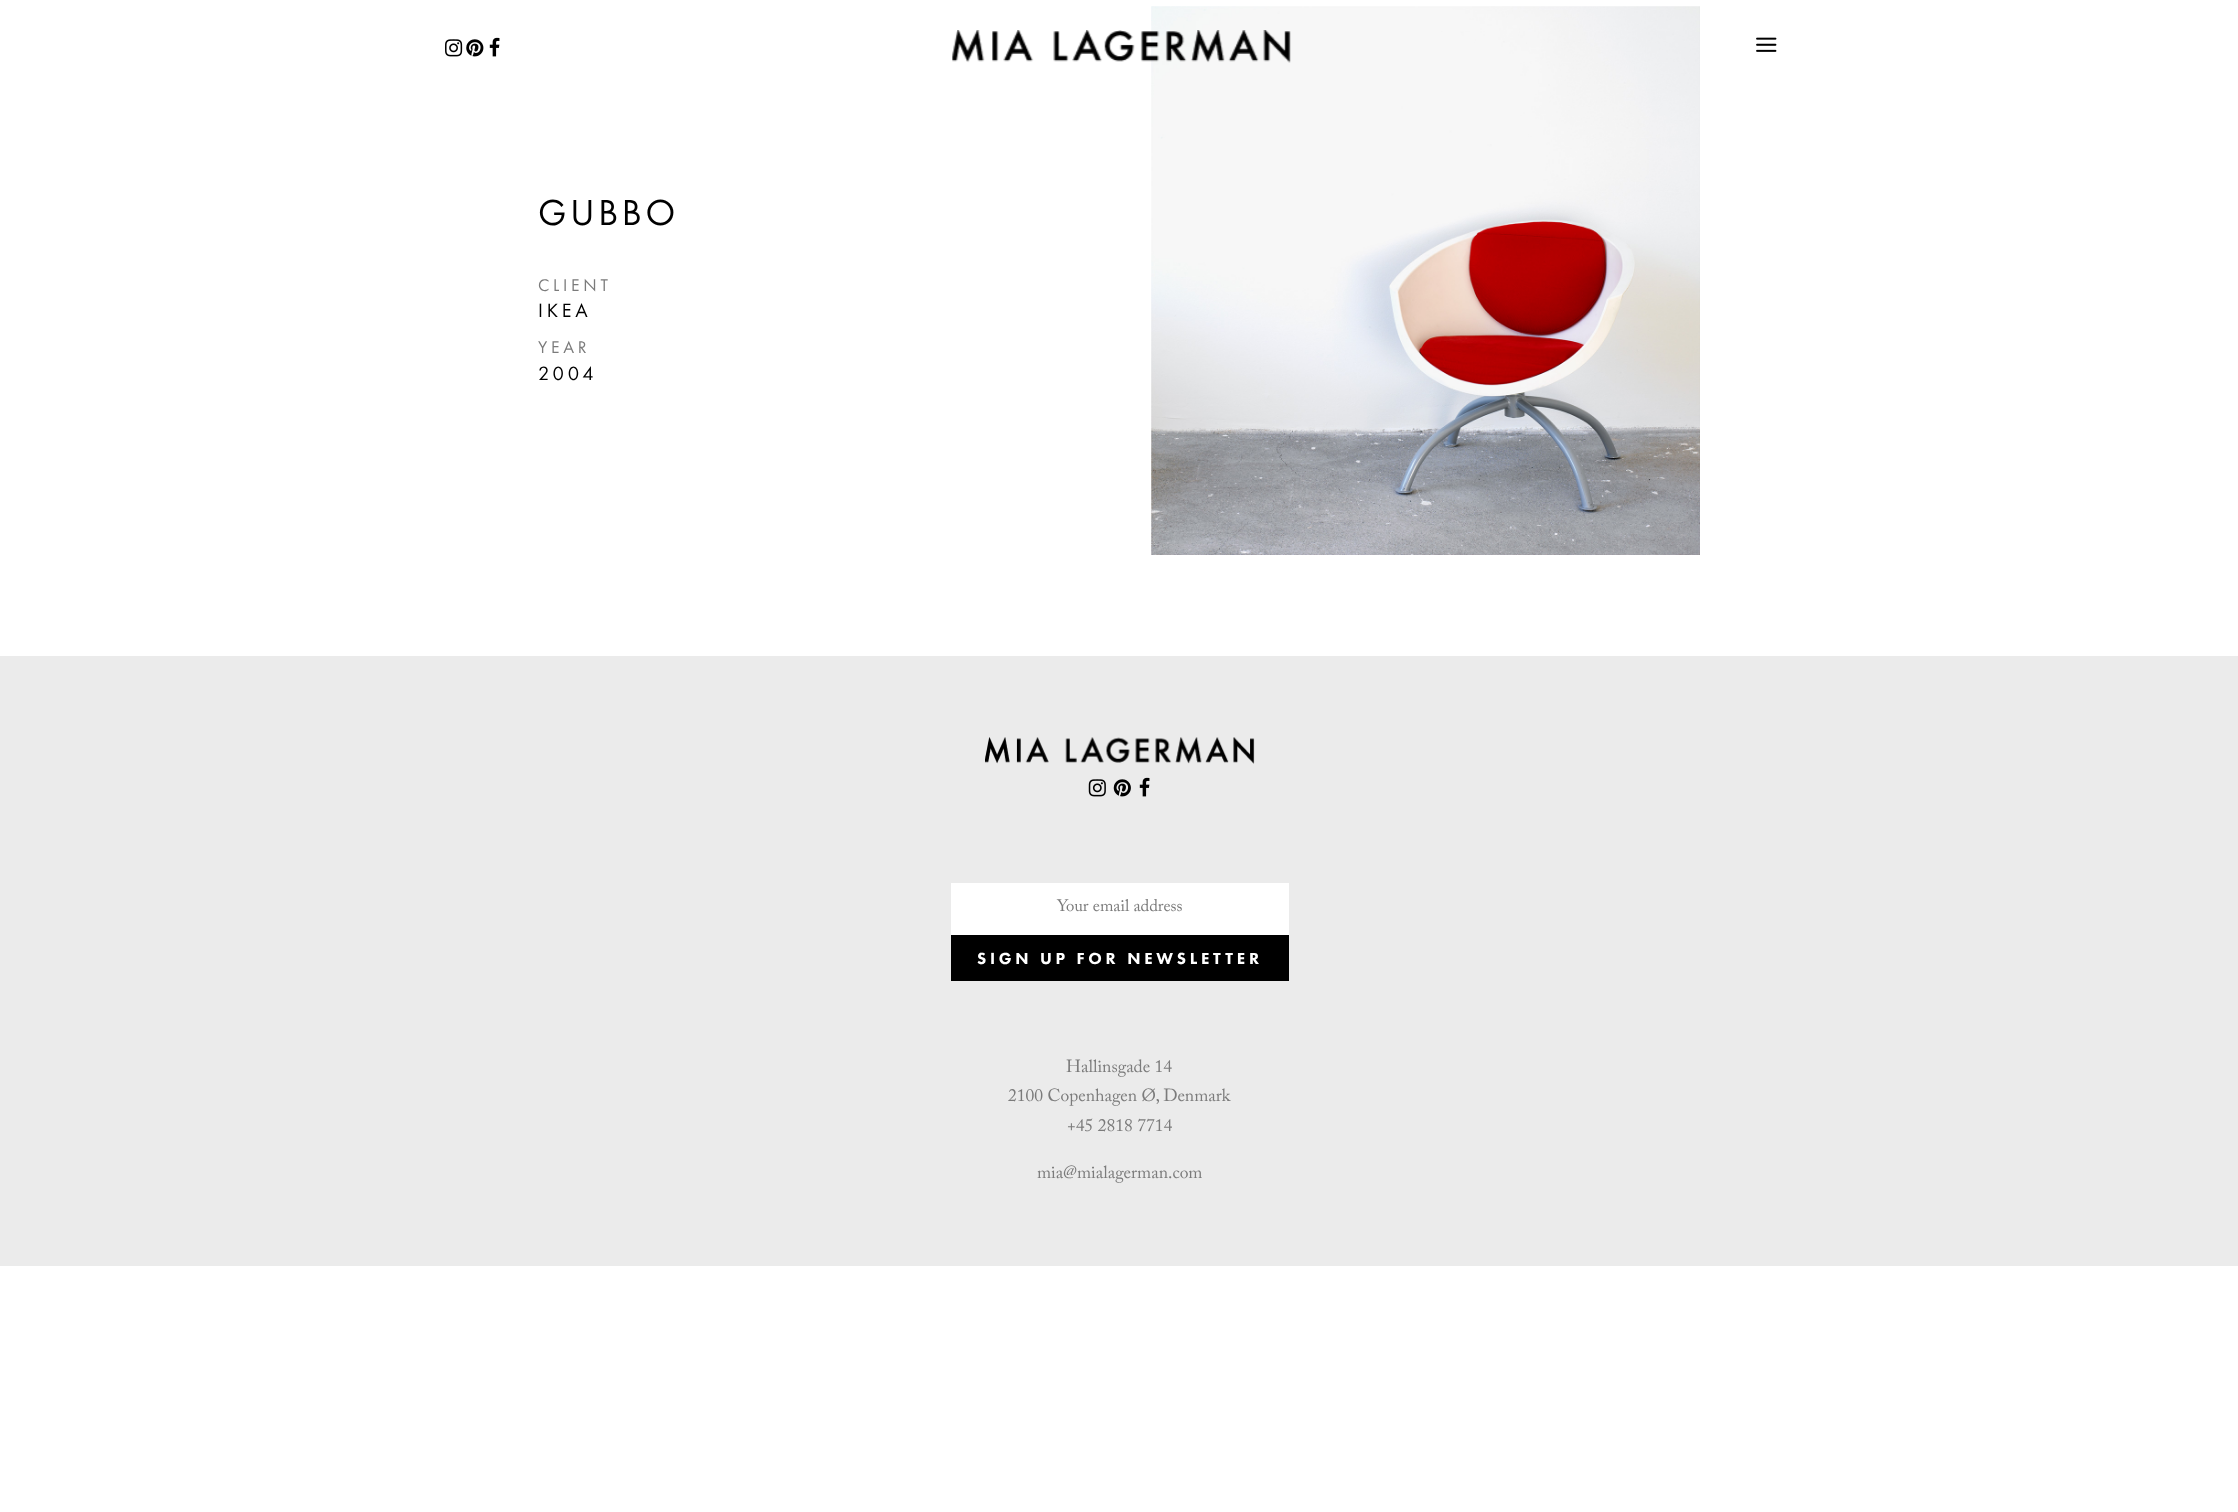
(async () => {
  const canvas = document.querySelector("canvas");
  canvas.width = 2238;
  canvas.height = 1512;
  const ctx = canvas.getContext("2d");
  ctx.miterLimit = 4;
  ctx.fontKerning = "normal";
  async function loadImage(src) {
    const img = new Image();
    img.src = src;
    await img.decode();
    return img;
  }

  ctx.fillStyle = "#ffffff";
  ctx.fillRect(0, 0, 2238, 1512);
  ctx.drawImage(await loadImage("img/1.png"), 445, 39, 18, 18);
  ctx.drawImage(await loadImage("img/2.png"), 466, 39, 18, 18);
  ctx.drawImage(await loadImage("img/3.png"), 489, 37, 11, 20);
  ctx.drawImage(await loadImage("img/6.png"), 1151, 6, 549, 549);
  ctx.drawImage(await loadImage("img/4.png"), 952, 30, 339, 33);
  ctx.drawImage(await loadImage("img/5.png"), 1756, 37, 21, 15);
  ctx.fillStyle = "#ebebeb";
  ctx.fillRect(0, 656, 2238, 610);
  ctx.drawImage(await loadImage("img/7.png"), 985, 737, 270, 27);
  ctx.drawImage(await loadImage("img/8.png"), 1088, 779, 18, 18);
  ctx.drawImage(await loadImage("img/9.png"), 1113, 779, 18, 18);
  ctx.drawImage(await loadImage("img/10.png"), 1139, 777, 11, 20);
  ctx.fillStyle = "#ffffff";
  ctx.fillRect(951, 883, 338, 52);
  ctx.fillStyle = "#000000";
  ctx.fillRect(951, 935, 338, 46);
  ctx.letterSpacing = "3.75px";
  ctx.font = "37.5px Futura PT";
  ctx.fillText("GUBBO", 538, 225);
  ctx.font = "17.5px Futura PT";
  ctx.fillStyle = "#7b7b7b";
  ctx.fillText("CLIENT", 538, 291);
  ctx.font = "20px Futura PT";
  ctx.fillStyle = "#000000";
  ctx.fillText("IKEA", 538, 317);
  ctx.font = "17.5px Futura PT";
  ctx.fillStyle = "#7b7b7b";
  ctx.fillText("YEAR", 538, 353);
  ctx.font = "20px Futura PT";
  ctx.fillStyle = "#000000";
  ctx.fillText("2004", 538, 380);
  ctx.letterSpacing = "0px";
  ctx.font = "16.7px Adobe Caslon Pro";
  ctx.fillStyle = "#7b7b7b";
  ctx.fillText("Your email address", 1057, 911);
  ctx.letterSpacing = "3.75px";
  ctx.font = "900 16.7px Futura PT";
  ctx.fillStyle = "#ffffff";
  ctx.fillText("SIGN UP FOR NEWSLETTER", 977, 964);
  ctx.letterSpacing = "0px";
  ctx.font = "17.5px Adobe Caslon Pro";
  ctx.fillStyle = "#7b7b7b";
  for (const [text, x, y] of [
    ["Hallinsgade 14", 1066, 1072],
    ["2100 Copenhagen Ø, Denmark", 1008, 1101],
    ["+45 2818 7714", 1067, 1131],
    ["mia@mialagerman.com", 1037, 1178],
  ]) {
    ctx.fillText(text, x, y);
  }
})();
